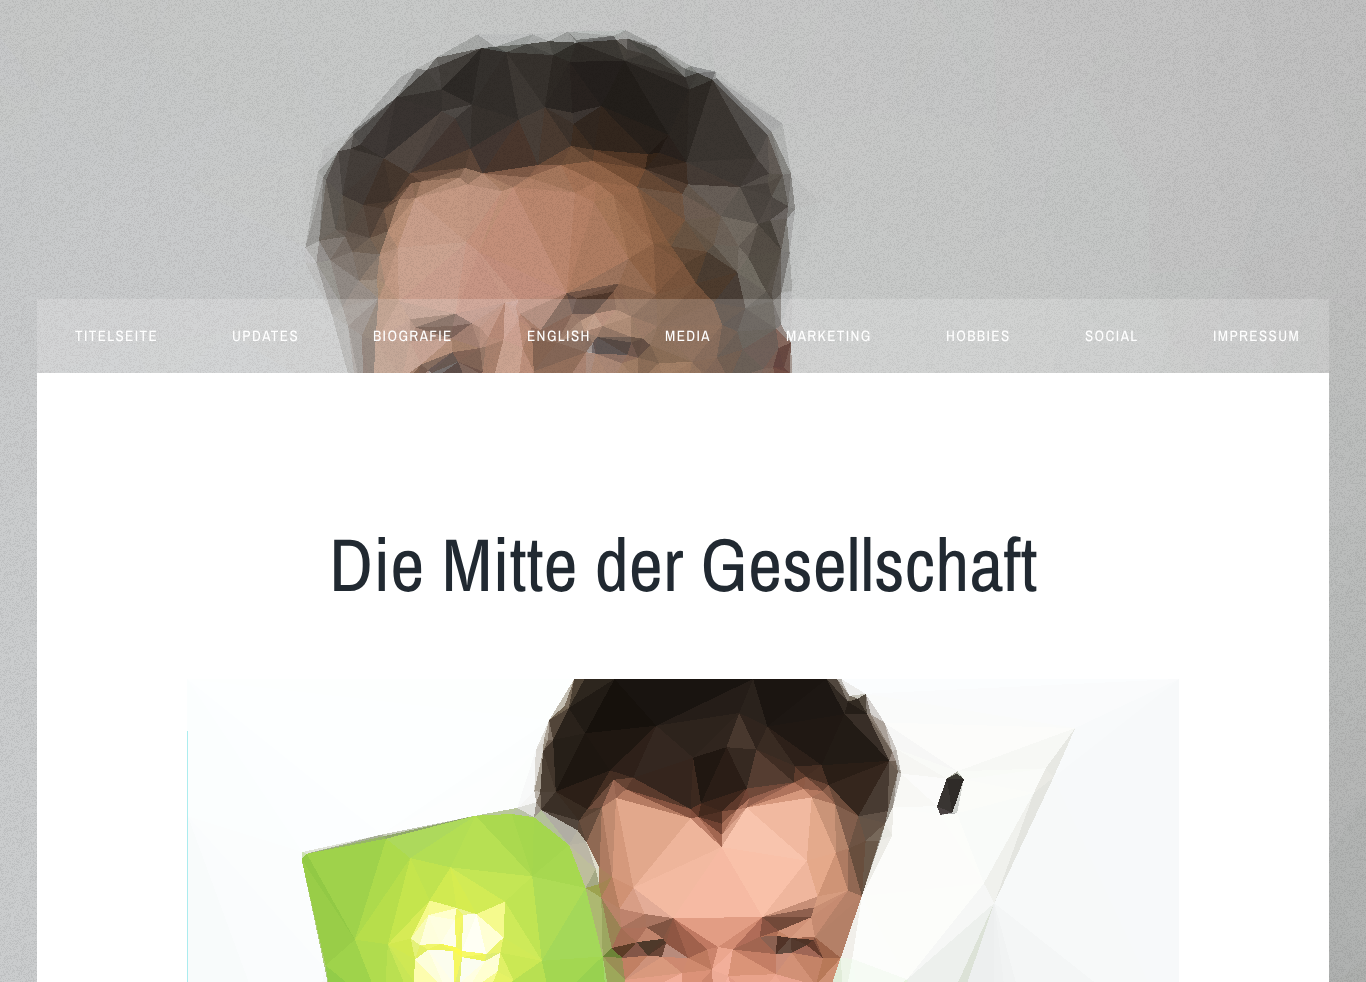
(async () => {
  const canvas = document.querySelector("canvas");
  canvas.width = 1366;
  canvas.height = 982;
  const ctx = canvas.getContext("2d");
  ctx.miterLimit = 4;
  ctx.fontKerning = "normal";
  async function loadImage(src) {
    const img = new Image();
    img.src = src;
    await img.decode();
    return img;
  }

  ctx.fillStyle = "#ffffff";
  ctx.fillRect(0, 0, 1366, 982);
  ctx.drawImage(await loadImage("img/1.png"), 0, 0, 1366, 982);
  ctx.fillStyle = "rgba(255, 255, 255, 0.18)";
  ctx.fillRect(37, 299, 1292, 74);
  ctx.fillStyle = "#ffffff";
  ctx.fillRect(37, 373, 1292, 609);
  ctx.drawImage(await loadImage("img/2.png"), 187, 679, 992, 303);
  ctx.letterSpacing = "1.4px";
  ctx.font = "15px Archivo Narrow";
  for (const [text, x, y] of [
    ["TITELSEITE", 75, 341],
    ["UPDATES", 232, 341],
    ["BIOGRAFIE", 373, 341],
    ["ENGLISH", 527, 341],
    ["MEDIA", 665, 341],
    ["MARKETING", 786, 341],
    ["HOBBIES", 946, 341],
    ["SOCIAL", 1085, 341],
    ["IMPRESSUM", 1213, 341],
  ]) {
    ctx.fillText(text, x, y);
  }
  ctx.letterSpacing = "0px";
  ctx.font = "74.75px Archivo Narrow";
  ctx.fillStyle = "#212931";
  ctx.fillText("Die Mitte der Gesellschaft", 329, 591);
})();
